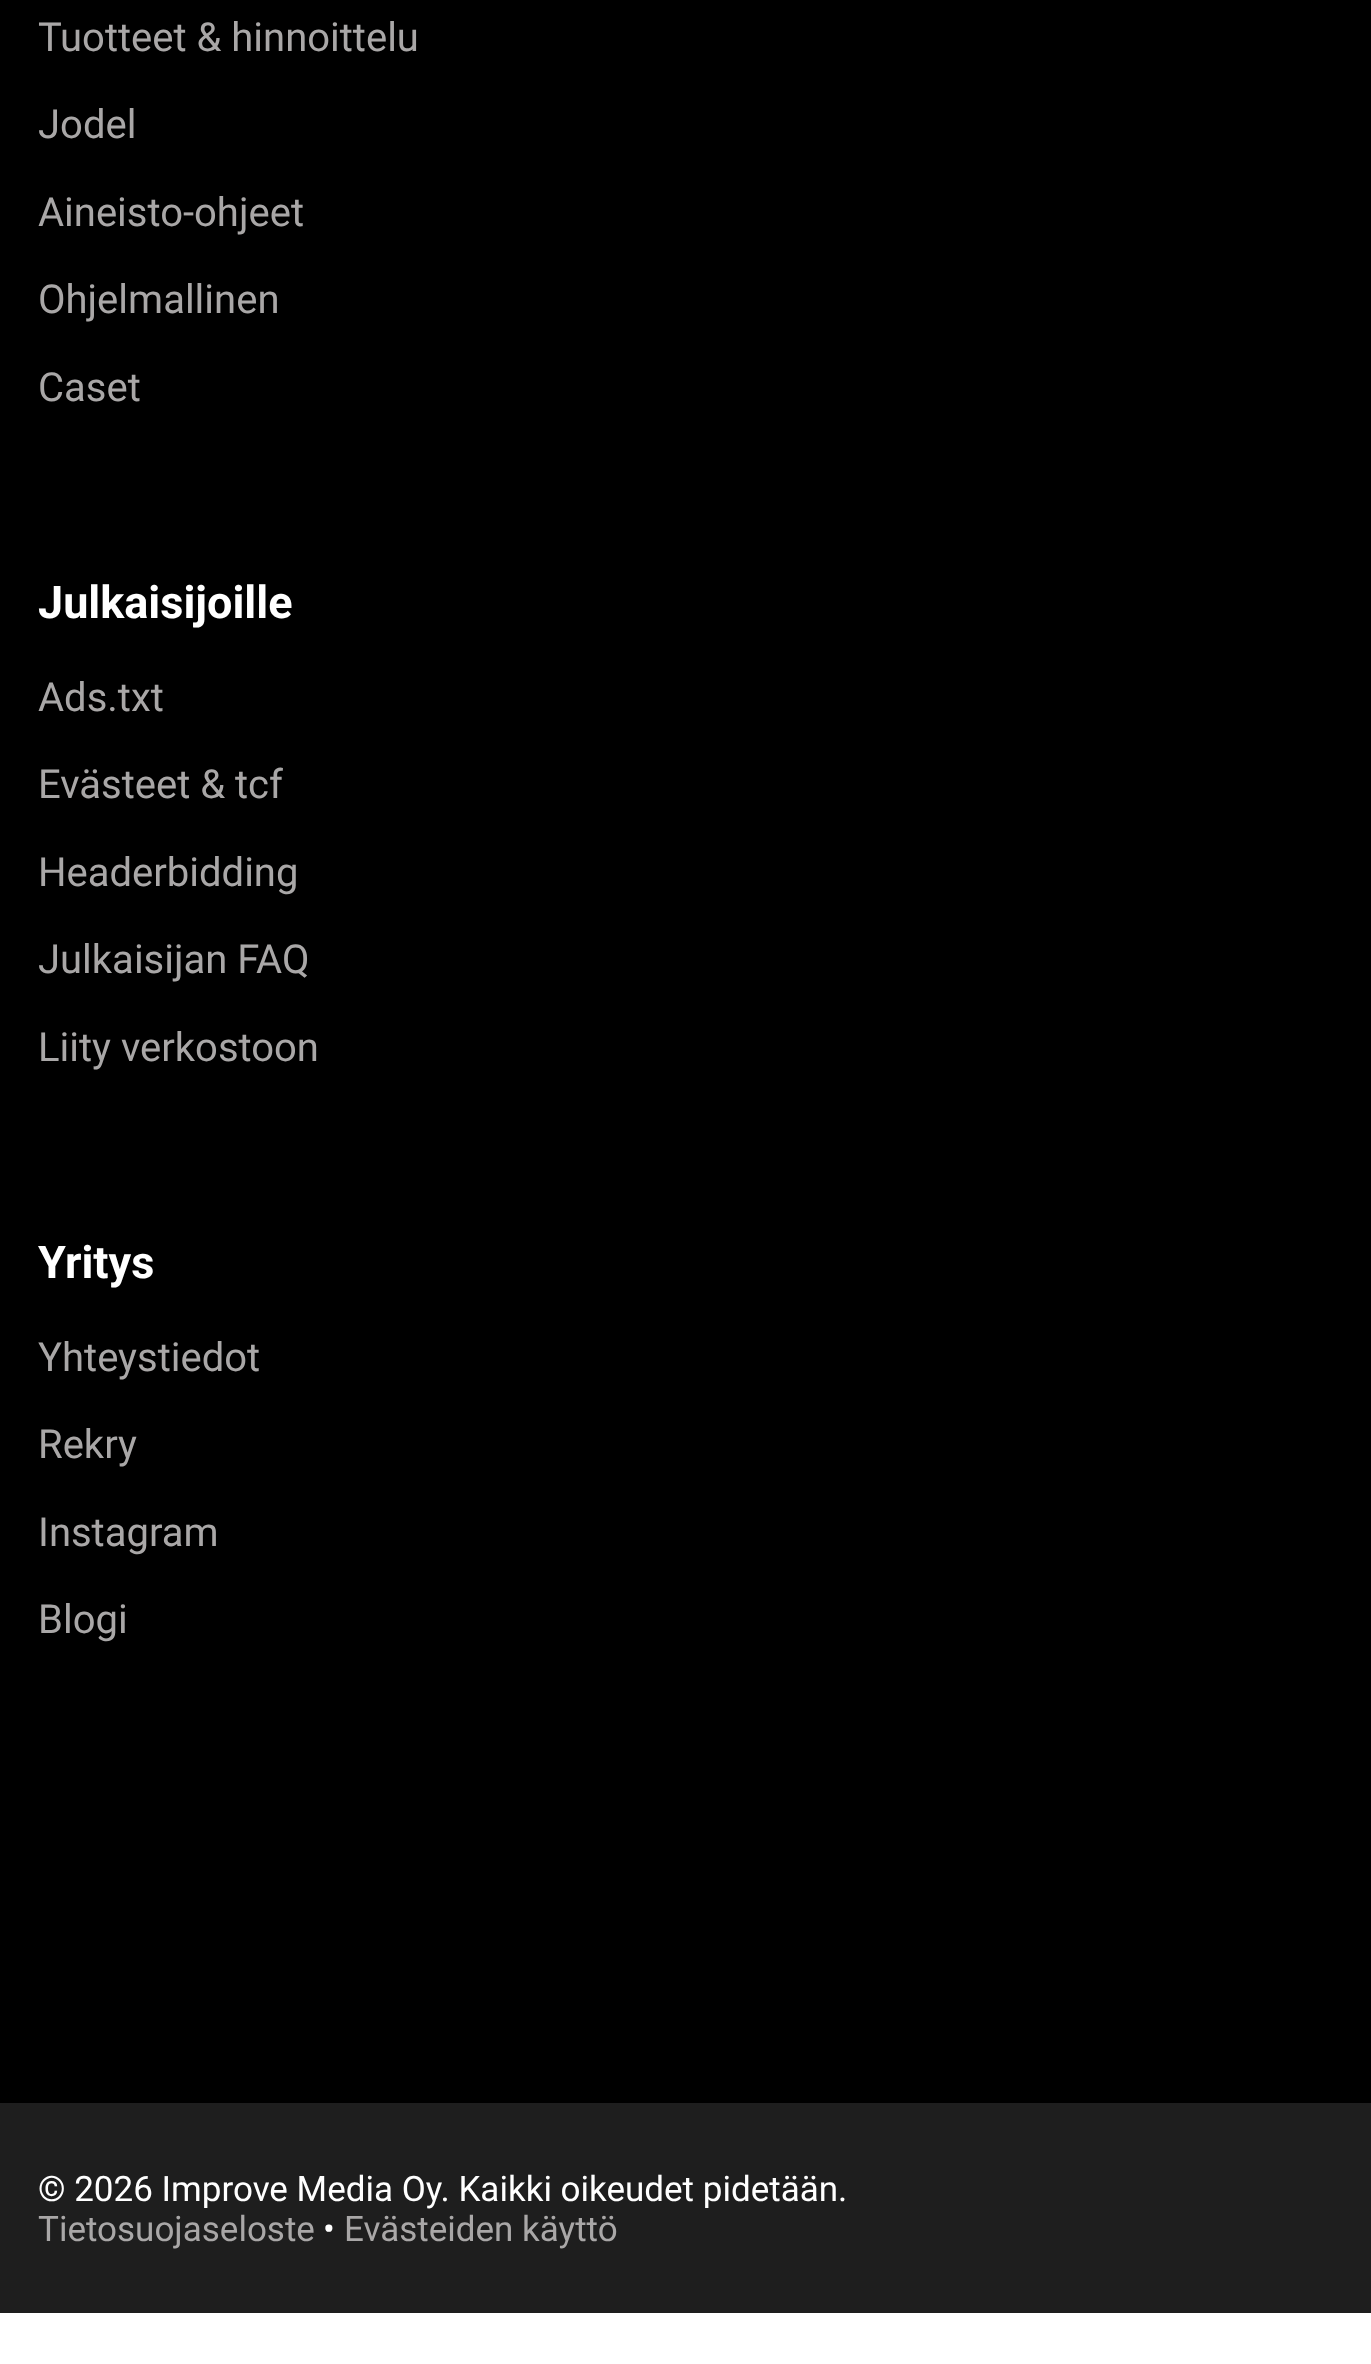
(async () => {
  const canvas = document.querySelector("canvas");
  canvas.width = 1371;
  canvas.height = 2364;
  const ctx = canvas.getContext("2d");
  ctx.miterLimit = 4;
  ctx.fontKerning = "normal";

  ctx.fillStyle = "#ffffff";
  ctx.fillRect(0, 0, 1371, 2364);
  ctx.fillStyle = "#000000";
  ctx.fillRect(0, 0, 1371, 2103);
  ctx.fillStyle = "#1e1e1e";
  ctx.fillRect(0, 2103, 1371, 210);
  ctx.font = "40px Roboto";
  ctx.fillStyle = "#a9a7a7";
  for (const [text, x, y] of [
    ["Tuotteet & hinnoittelu", 38, 51],
    ["Jodel", 38, 138],
    ["Aineisto-ohjeet", 38, 226],
    ["Ohjelmallinen", 38, 313],
    ["Caset", 38, 401],
  ]) {
    ctx.fillText(text, x, y);
  }
  ctx.font = "bold 45px Roboto";
  ctx.fillStyle = "#ffffff";
  ctx.fillText("Julkaisijoille", 38, 618);
  ctx.font = "40px Roboto";
  ctx.fillStyle = "#a9a7a7";
  for (const [text, x, y] of [
    ["Ads.txt", 38, 711],
    ["Evästeet & tcf", 38, 798],
    ["Headerbidding", 38, 886],
    ["Julkaisijan FAQ", 38, 973],
    ["Liity verkostoon", 38, 1061],
  ]) {
    ctx.fillText(text, x, y);
  }
  ctx.font = "bold 45px Roboto";
  ctx.fillStyle = "#ffffff";
  ctx.fillText("Yritys", 38, 1278);
  ctx.font = "40px Roboto";
  ctx.fillStyle = "#a9a7a7";
  for (const [text, x, y] of [
    ["Yhteystiedot", 38, 1371],
    ["Rekry", 38, 1458],
    ["Instagram", 38, 1546],
    ["Blogi", 38, 1633],
  ]) {
    ctx.fillText(text, x, y);
  }
  ctx.font = "35px Roboto";
  ctx.fillStyle = "#ffffff";
  ctx.fillText("© 2026 Improve Media Oy. Kaikki oikeudet pidetään.", 38, 2201);
  ctx.fillStyle = "#a9a7a7";
  ctx.fillText("Tietosuojaseloste", 38, 2241);
  ctx.fillStyle = "#ffffff";
  ctx.fillText("•", 323, 2241);
  ctx.fillStyle = "#a9a7a7";
  ctx.fillText("Evästeiden käyttö", 344, 2241);
})();
